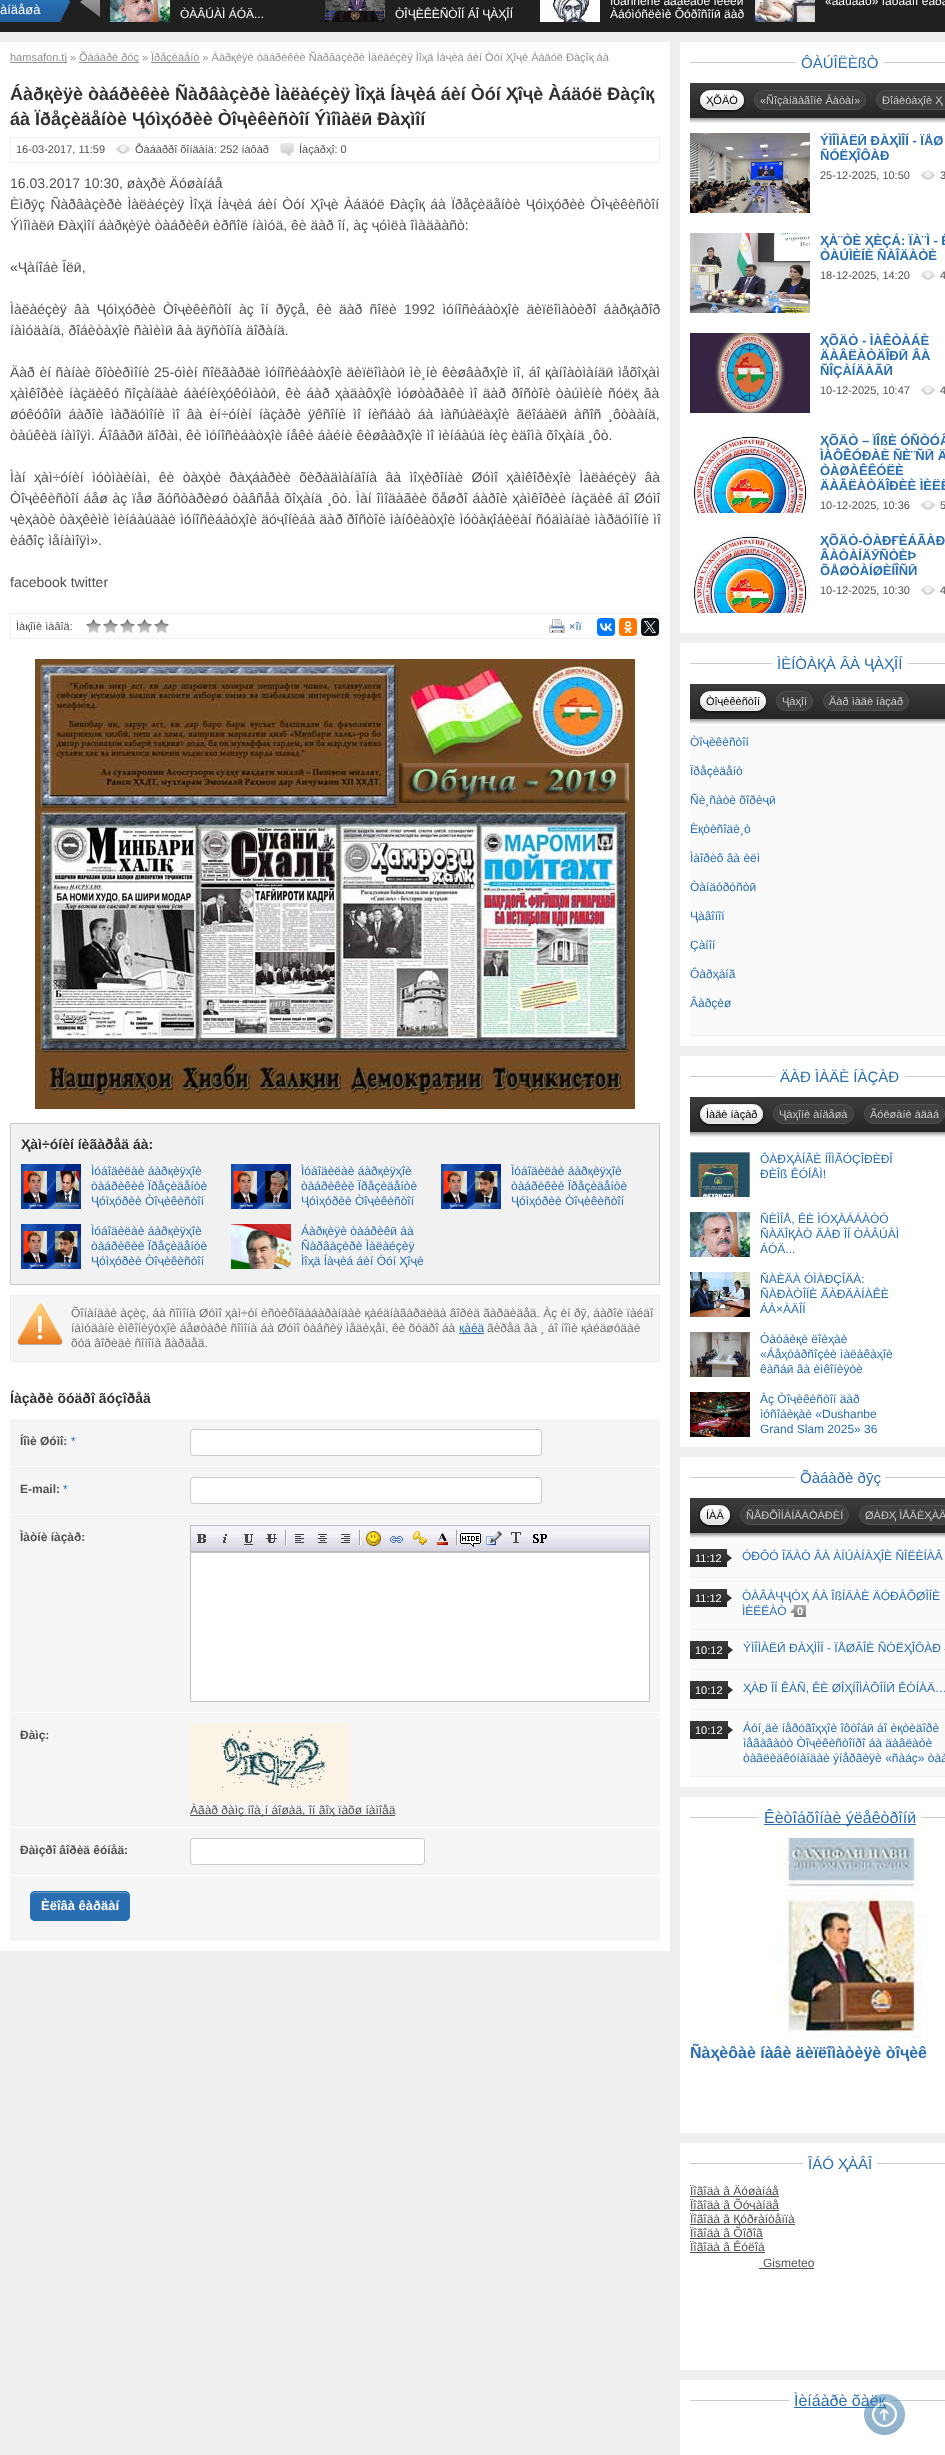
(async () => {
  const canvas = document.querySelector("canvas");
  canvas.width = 945;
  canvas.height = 2455;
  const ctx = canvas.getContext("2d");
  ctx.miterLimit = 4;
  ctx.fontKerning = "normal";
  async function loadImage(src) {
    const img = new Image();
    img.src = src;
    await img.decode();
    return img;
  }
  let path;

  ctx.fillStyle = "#eeeeee";
  ctx.fillRect(0, 0, 945, 2455);
  ctx.fillStyle = "#202020";
  ctx.fillRect(0, 0, 945, 32);
  ctx.drawImage(await loadImage("img/1.png"), 0, 0, 70, 22);
  ctx.drawImage(await loadImage("img/2.png"), 80, 0, 20, 17);
  ctx.drawImage(await loadImage("img/3.png"), 540, 0, 60, 22);
  ctx.drawImage(await loadImage("img/4.png"), 755, 0, 60, 22);
  ctx.drawImage(await loadImage("img/5.png"), 110, 0, 60, 22);
  ctx.drawImage(await loadImage("img/6.png"), 325, 0, 60, 22);
  for (const [x, y, w, h, color] of [
    [0, 42, 670, 1909, "#ffffff"],
    [10, 62, 57, 1, "#909090"],
    [79, 62, 60, 1, "#909090"],
    [151, 62, 49, 1, "#909090"],
  ]) {
    ctx.fillStyle = color;
    ctx.fillRect(x, y, w, h);
  }
  ctx.strokeStyle = "#eeeeee";
  ctx.strokeRect(10.5, 137.5, 649, 25);
  ctx.drawImage(await loadImage("img/7.png"), 116, 144, 14, 10);
  ctx.drawImage(await loadImage("img/8.png"), 280, 143, 14, 13);
  ctx.strokeRect(10.5, 613.5, 649, 25);
  ctx.drawImage(await loadImage("img/9.png"), 86, 619, 83, 14);
  ctx.drawImage(await loadImage("img/10.png"), 549, 619, 16, 14);
  ctx.fillStyle = "#0077ff";
  ctx.beginPath();
  ctx.roundRect(597, 618, 18, 18, 4);
  ctx.fill();
  ctx.drawImage(await loadImage("img/11.png"), 600, 623, 12, 8);
  ctx.fillStyle = "#ff7700";
  ctx.beginPath();
  ctx.roundRect(619, 618, 18, 18, 4);
  ctx.fill();
  ctx.drawImage(await loadImage("img/12.png"), 624, 621, 8, 12);
  ctx.fillStyle = "#0f1419";
  ctx.beginPath();
  ctx.roundRect(641, 618, 18, 18, 4);
  ctx.fill();
  ctx.drawImage(await loadImage("img/13.png"), 644, 621, 12, 12);
  ctx.drawImage(await loadImage("img/14.png"), 35, 659, 600, 450);
  ctx.fillStyle = "#f1f1f1";
  ctx.beginPath();
  ctx.rect(10.5, 1123.5, 649, 161);
  ctx.fill();
  ctx.strokeStyle = "#cccccc";
  ctx.stroke();
  ctx.drawImage(await loadImage("img/15.png"), 21, 1164, 60, 45);
  ctx.drawImage(await loadImage("img/16.png"), 231, 1164, 60, 45);
  ctx.drawImage(await loadImage("img/17.png"), 441, 1164, 60, 45);
  ctx.drawImage(await loadImage("img/18.png"), 21, 1224, 60, 45);
  ctx.drawImage(await loadImage("img/19.png"), 231, 1224, 60, 45);
  ctx.fillStyle = "#f5f5f5";
  ctx.fillRect(11, 1296, 648, 65);
  ctx.drawImage(await loadImage("img/20.png"), 17, 1303, 46, 42);
  ctx.strokeStyle = "#eeeeee";
  ctx.strokeRect(10.5, 1295.5, 649, 66);
  ctx.fillStyle = "#286eb1";
  ctx.fillRect(459, 1333, 25, 1);
  ctx.fillStyle = "#f5f5f5";
  ctx.fillRect(10, 1419, 650, 522);
  ctx.fillStyle = "#ffffff";
  ctx.beginPath();
  ctx.roundRect(190.5, 1429.5, 351, 26, 2.5);
  ctx.fill();
  ctx.strokeStyle = "#cccccc";
  ctx.stroke();
  ctx.fillRect(10, 1466, 651, 1);
  ctx.beginPath();
  ctx.roundRect(190.5, 1477.5, 351, 26, 2.5);
  ctx.fill();
  ctx.stroke();
  ctx.fillRect(10, 1514, 651, 1);
  ctx.drawImage(await loadImage("img/21.png"), 191, 1526, 458, 25);
  ctx.strokeStyle = "#bbbbbb";
  ctx.strokeRect(190.5, 1525.5, 459, 26);
  ctx.drawImage(await loadImage("img/22.png"), 192, 1534, 21, 14);
  ctx.drawImage(await loadImage("img/23.png"), 214, 1534, 22, 14);
  ctx.drawImage(await loadImage("img/24.png"), 237, 1534, 22, 14);
  ctx.drawImage(await loadImage("img/25.png"), 260, 1534, 22, 14);
  ctx.drawImage(await loadImage("img/26.png"), 283, 1530, 4, 18);
  ctx.drawImage(await loadImage("img/27.png"), 289, 1534, 21, 14);
  ctx.drawImage(await loadImage("img/28.png"), 311, 1534, 22, 14);
  ctx.drawImage(await loadImage("img/29.png"), 335, 1534, 21, 14);
  ctx.drawImage(await loadImage("img/26.png"), 357, 1530, 4, 18);
  ctx.drawImage(await loadImage("img/30.png"), 362, 1531, 22, 15);
  ctx.drawImage(await loadImage("img/31.png"), 385, 1536, 22, 8);
  ctx.drawImage(await loadImage("img/32.png"), 408, 1531, 22, 14);
  ctx.drawImage(await loadImage("img/33.png"), 431, 1533, 22, 12);
  ctx.drawImage(await loadImage("img/26.png"), 454, 1530, 4, 18);
  ctx.drawImage(await loadImage("img/34.png"), 459, 1533, 22, 14);
  ctx.drawImage(await loadImage("img/35.png"), 482, 1531, 22, 17);
  ctx.drawImage(await loadImage("img/36.png"), 505, 1532, 23, 12);
  ctx.drawImage(await loadImage("img/37.png"), 529, 1534, 21, 10);
  ctx.beginPath();
  ctx.rect(190.5, 1552.5, 459, 149);
  ctx.fill();
  ctx.strokeStyle = "#bcc0c2";
  ctx.stroke();
  ctx.fillRect(10, 1712, 651, 1);
  ctx.drawImage(await loadImage("img/38.png"), 190, 1723, 160, 80);
  ctx.fillStyle = "#505050";
  ctx.fillRect(190, 1815, 205, 1);
  ctx.fillStyle = "#ffffff";
  ctx.fillRect(10, 1827, 651, 1);
  ctx.beginPath();
  ctx.roundRect(190.5, 1838.5, 234, 26, 2.5);
  ctx.fill();
  ctx.strokeStyle = "#cccccc";
  ctx.stroke();
  ctx.fillRect(10, 1875, 651, 1);
  ctx.fillStyle = "#286eb1";
  ctx.beginPath();
  ctx.roundRect(30, 1891, 100, 30, 5);
  ctx.fill();
  ctx.fillStyle = "#699ac8";
  path = new Path2D("M35 1893H125C127 1893 129 1895 129 1897C129 1888 114 1892 110 1892H50C46 1892 31 1888 31 1897C31 1895 33 1893 35 1893Z");
  ctx.fill(path);
  ctx.beginPath();
  ctx.roundRect(30.5, 1891.5, 99, 29, 4.5);
  ctx.strokeStyle = "#286eb1";
  ctx.stroke();
  for (const [x, y, w, h, color] of [
    [680, 42, 265, 591, "#ffffff"],
    [690, 62, 255, 1, "#cccccc"],
    [796, 62, 88, 1, "#ffffff"],
  ]) {
    ctx.fillStyle = color;
    ctx.fillRect(x, y, w, h);
  }
  ctx.drawImage(await loadImage("img/39.png"), 690, 83, 255, 40);
  ctx.fillStyle = "#000000";
  ctx.filter = "blur(1.5px)";
  ctx.beginPath();
  ctx.roundRect(700, 91, 44, 20, 10);
  ctx.fill();
  ctx.filter = "none";
  ctx.drawImage(await loadImage("img/40.png"), 700, 91, 44, 19);
  ctx.beginPath();
  ctx.roundRect(700.5, 90.5, 43, 19, 9.5);
  ctx.strokeStyle = "#eeeeee";
  ctx.stroke();
  ctx.fillStyle = "#404040";
  ctx.beginPath();
  ctx.roundRect(754.5, 90.5, 111, 19, 9.5);
  ctx.fill();
  ctx.strokeStyle = "#505050";
  ctx.stroke();
  ctx.beginPath();
  ctx.roundRect(876.5, 90.5, 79, 19, 9.5);
  ctx.fill();
  ctx.stroke();
  ctx.drawImage(await loadImage("img/41.png"), 690, 133, 120, 80);
  ctx.drawImage(await loadImage("img/7.png"), 921, 170, 14, 10);
  ctx.drawImage(await loadImage("img/42.png"), 690, 233, 120, 80);
  ctx.drawImage(await loadImage("img/7.png"), 921, 270, 14, 10);
  ctx.drawImage(await loadImage("img/43.png"), 690, 333, 120, 80);
  ctx.drawImage(await loadImage("img/7.png"), 921, 385, 14, 10);
  ctx.drawImage(await loadImage("img/44.png"), 690, 433, 120, 80);
  ctx.drawImage(await loadImage("img/7.png"), 921, 500, 14, 10);
  ctx.drawImage(await loadImage("img/45.png"), 690, 533, 120, 80);
  ctx.drawImage(await loadImage("img/7.png"), 921, 585, 14, 10);
  for (const [x, y, w, h, color] of [
    [680, 643, 265, 403, "#ffffff"],
    [690, 663, 255, 1, "#cccccc"],
    [772, 663, 136, 1, "#ffffff"],
  ]) {
    ctx.fillStyle = color;
    ctx.fillRect(x, y, w, h);
  }
  ctx.drawImage(await loadImage("img/39.png"), 690, 684, 255, 40);
  ctx.fillStyle = "#000000";
  ctx.filter = "blur(1.5px)";
  ctx.beginPath();
  ctx.roundRect(700, 692, 66, 20, 10);
  ctx.fill();
  ctx.filter = "none";
  ctx.drawImage(await loadImage("img/46.png"), 700, 692, 66, 19);
  ctx.beginPath();
  ctx.roundRect(700.5, 691.5, 65, 19, 9.5);
  ctx.strokeStyle = "#eeeeee";
  ctx.stroke();
  ctx.fillStyle = "#404040";
  ctx.beginPath();
  ctx.roundRect(776.5, 691.5, 36, 19, 9.5);
  ctx.fill();
  ctx.strokeStyle = "#505050";
  ctx.stroke();
  ctx.beginPath();
  ctx.roundRect(823.5, 691.5, 85, 19, 9.5);
  ctx.fill();
  ctx.stroke();
  for (const [x, y, w, h, color] of [
    [690, 725, 255, 310, "#fafafa"],
    [690, 1035, 255, 1, "#eeeeee"],
    [680, 1056, 265, 391, "#ffffff"],
    [690, 1076, 255, 1, "#cccccc"],
    [775, 1076, 130, 1, "#ffffff"],
  ]) {
    ctx.fillStyle = color;
    ctx.fillRect(x, y, w, h);
  }
  ctx.drawImage(await loadImage("img/39.png"), 690, 1097, 255, 40);
  ctx.fillStyle = "#000000";
  ctx.filter = "blur(1.5px)";
  ctx.beginPath();
  ctx.roundRect(700, 1105, 63, 20, 10);
  ctx.fill();
  ctx.filter = "none";
  ctx.drawImage(await loadImage("img/47.png"), 700, 1105, 63, 19);
  ctx.beginPath();
  ctx.roundRect(700.5, 1104.5, 62, 19, 9.5);
  ctx.strokeStyle = "#eeeeee";
  ctx.stroke();
  ctx.fillStyle = "#404040";
  ctx.beginPath();
  ctx.roundRect(773.5, 1104.5, 80, 19, 9.5);
  ctx.fill();
  ctx.strokeStyle = "#505050";
  ctx.stroke();
  ctx.beginPath();
  ctx.roundRect(864.5, 1104.5, 80, 19, 9.5);
  ctx.fill();
  ctx.stroke();
  ctx.drawImage(await loadImage("img/48.png"), 690, 1152, 60, 45);
  ctx.drawImage(await loadImage("img/49.png"), 690, 1212, 60, 45);
  ctx.drawImage(await loadImage("img/50.png"), 690, 1272, 60, 45);
  ctx.drawImage(await loadImage("img/51.png"), 690, 1332, 60, 45);
  ctx.drawImage(await loadImage("img/52.png"), 690, 1392, 60, 45);
  for (const [x, y, w, h, color] of [
    [680, 1457, 265, 330, "#ffffff"],
    [690, 1477, 255, 1, "#cccccc"],
    [795, 1477, 90, 1, "#ffffff"],
  ]) {
    ctx.fillStyle = color;
    ctx.fillRect(x, y, w, h);
  }
  ctx.drawImage(await loadImage("img/39.png"), 690, 1498, 255, 40);
  ctx.fillStyle = "#000000";
  ctx.filter = "blur(1.5px)";
  ctx.beginPath();
  ctx.roundRect(700, 1506, 30, 20, 10);
  ctx.fill();
  ctx.filter = "none";
  ctx.drawImage(await loadImage("img/53.png"), 700, 1506, 30, 19);
  ctx.beginPath();
  ctx.roundRect(700.5, 1505.5, 29, 19, 9.5);
  ctx.strokeStyle = "#eeeeee";
  ctx.stroke();
  ctx.fillStyle = "#404040";
  ctx.beginPath();
  ctx.roundRect(740.5, 1505.5, 108, 19, 9.5);
  ctx.fill();
  ctx.strokeStyle = "#505050";
  ctx.stroke();
  ctx.beginPath();
  ctx.roundRect(859.5, 1505.5, 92, 19, 9.5);
  ctx.fill();
  ctx.stroke();
  ctx.fillStyle = "#fafafa";
  ctx.fillRect(690, 1539, 255, 38);
  ctx.fillStyle = "#eeeeee";
  ctx.fillRect(690, 1577, 255, 1);
  ctx.drawImage(await loadImage("img/54.png"), 690, 1549, 42, 18);
  ctx.fillStyle = "#fafafa";
  ctx.fillRect(690, 1579, 255, 50);
  ctx.fillStyle = "#eeeeee";
  ctx.fillRect(690, 1629, 255, 1);
  ctx.drawImage(await loadImage("img/54.png"), 690, 1589, 42, 18);
  ctx.drawImage(await loadImage("img/55.png"), 790, 1605, 16, 12);
  ctx.fillStyle = "#fafafa";
  ctx.fillRect(690, 1631, 255, 38);
  ctx.fillStyle = "#eeeeee";
  ctx.fillRect(690, 1669, 255, 1);
  ctx.drawImage(await loadImage("img/56.png"), 690, 1641, 43, 18);
  for (const [x, y, w, h, color] of [
    [944, 1649, 1, 1, "#b8b8b8"],
    [690, 1671, 255, 38, "#fafafa"],
    [690, 1709, 255, 1, "#eeeeee"],
  ]) {
    ctx.fillStyle = color;
    ctx.fillRect(x, y, w, h);
  }
  ctx.drawImage(await loadImage("img/56.png"), 690, 1681, 43, 18);
  ctx.fillStyle = "#fafafa";
  ctx.fillRect(690, 1711, 255, 65);
  ctx.fillStyle = "#eeeeee";
  ctx.fillRect(690, 1776, 255, 1);
  ctx.drawImage(await loadImage("img/56.png"), 690, 1721, 43, 18);
  for (const [x, y, w, h, color] of [
    [680, 1797, 265, 336, "#ffffff"],
    [690, 1817, 255, 1, "#cccccc"],
    [759, 1817, 162, 1, "#ffffff"],
    [764, 1824, 152, 1, "#286eb1"],
  ]) {
    ctx.fillStyle = color;
    ctx.fillRect(x, y, w, h);
  }
  ctx.drawImage(await loadImage("img/57.png"), 774, 1838, 148, 200);
  for (const [x, y, w, h, color] of [
    [680, 2143, 265, 227, "#ffffff"],
    [690, 2163, 255, 1, "#cccccc"],
    [803, 2163, 74, 1, "#ffffff"],
    [690, 2196, 89, 1, "#505050"],
    [690, 2210, 89, 1, "#505050"],
    [690, 2224, 105, 1, "#505050"],
    [690, 2238, 73, 1, "#505050"],
    [690, 2252, 75, 1, "#505050"],
    [759, 2268, 55, 1, "#505050"],
    [680, 2380, 265, 75, "#ffffff"],
    [690, 2400, 255, 1, "#cccccc"],
    [789, 2400, 102, 1, "#ffffff"],
    [794, 2407, 92, 1, "#286eb1"],
  ]) {
    ctx.fillStyle = color;
    ctx.fillRect(x, y, w, h);
  }
  ctx.font = "13px Liberation Sans";
  ctx.fillStyle = "#ffffff";
  ctx.fillText("àíäåøà", 0, 14);
  ctx.font = "12px Liberation Sans";
  for (const [text, x, y] of [
    ["ìóàññèñè äàâëàòè ìèëëӣ", 610, 5],
    ["Àáóìóñëèìè Õóðîñîíӣ äàð", 610, 18],
    ["«äàúâàò» ìåòàâîí êàðä", 825, 5],
    ["ÒÀÂÚÀÌ ÁÓÄ...", 180, 18],
    ["ÒÎҶÈÊÈÑÒÎÍ ÁÎ ҶÀҲÎÍ", 395, 18],
  ]) {
    ctx.fillText(text, x, y);
  }
  ctx.font = "11px Liberation Sans";
  ctx.fillStyle = "#909090";
  for (const [text, x, y] of [
    ["hamsafon.tj »", 10, 61],
    ["Õàáàðè ðóç »", 79, 61],
    ["Ïðåçèäåíò » Áàðқèÿè òàáðèêèè Ñàðâàçèðè Ìàëàéçèÿ Ìîҳä Íàҷèá áèí Òóí Ҳîҷè Àáäóë Ðàçîқ áà", 151, 61],
  ]) {
    ctx.fillText(text, x, y);
  }
  ctx.font = "bold 18px Liberation Sans";
  ctx.fillStyle = "#303030";
  ctx.fillText("Áàðқèÿè òàáðèêèè Ñàðâàçèðè Ìàëàéçèÿ Ìîҳä Íàҷèá áèí Òóí Ҳîҷè Àáäóë Ðàçîқ", 10, 100);
  ctx.fillText("áà Ïðåçèäåíòè Ҷóìҳóðèè Òîҷèêèñòîí Ýìîìàëӣ Ðàҳìîí", 10, 125);
  ctx.font = "11px Liberation Sans";
  ctx.fillStyle = "#505050";
  for (const [text, x, y] of [
    ["16-03-2017, 11:59", 16, 153],
    ["Õàáàððî õîíäàíä: 252 íàôàð", 135, 153],
    ["Íàçàðҳî: 0", 299, 153],
  ]) {
    ctx.fillText(text, x, y);
  }
  ctx.font = "14px Liberation Sans";
  ctx.fillText("16.03.2017 10:30, øàҳðè Äóøàíáå", 10, 188);
  ctx.wordSpacing = "1.5px";
  ctx.fillText("Èìðӯç Ñàðâàçèðè Ìàëàéçèÿ Ìîҳä Íàҷèá áèí Òóí Ҳîҷè Àáäóë Ðàçîқ áà Ïðåçèäåíòè Ҷóìҳóðèè Òîҷèêèñòîí", 10, 209);
  ctx.wordSpacing = "0px";
  ctx.fillText("Ýìîìàëӣ Ðàҳìîí áàðқèÿè òàáðèêӣ èðñîë íàìóä, êè äàð îí, àç ҷóìëà îìàäààñò:", 10, 230);
  ctx.fillText("«Ҷàíîáè Îëӣ,", 10, 272);
  ctx.wordSpacing = "3.25px";
  ctx.fillText("Ìàëàéçèÿ âà Ҷóìҳóðèè Òîҷèêèñòîí àç îí ðӯçå, êè äàð ñîëè 1992 ìóíîñèáàòҳîè äèïëîìàòèðî áàðқàðîð", 10, 314);
  ctx.wordSpacing = "0px";
  ctx.fillText("íàìóäàíä, ðîáèòàҳîè ñàìèìӣ âà äӯñòîíà äîðàíä.", 10, 335);
  ctx.wordSpacing = "0.6px";
  ctx.fillText("Äàð èí ñàíàè õîòèðìîíè 25-óìèí ñîëãàðäè ìóíîñèáàòҳîè äèïëîìàòӣ ìè¸íè êèøâàðҳîè ìî, áî қàíîàòìàíäӣ ìåõîҳàì", 10, 377);
  ctx.wordSpacing = "1.5px";
  ctx.fillText("ҳàìêîðèè íàçäèêó ñîçàíäàè áàéíèҳóêóìàòӣ, êè áàð ҳàäàôҳîè ìóøòàðàêè ìî äàð ðîñòîè òàúìèíè ñóëҳ âà", 10, 398);
  ctx.wordSpacing = "3.1px";
  ctx.fillText("øóêóôîӣ áàðîè ìàðäóìîíè ìî âà èí÷óíèí íàçàðè ÿêñîíè ìî íèñáàò áà ìàñúàëàҳîè ãëîáàëӣ àñîñ ¸ôòààíä,", 10, 419);
  ctx.wordSpacing = "0px";
  ctx.fillText("òàúêèä íàìîÿì. Áîâàðӣ äîðàì, êè ìóíîñèáàòҳîè íåêè áàéíè êèøâàðҳîè ìî ìèíáàúä íèç èäîìà õîҳàíä ¸ôò.", 10, 440);
  ctx.wordSpacing = "4.5px";
  ctx.fillText("Ìàí ҳàì÷óíèí ìóòìàèíàì, êè òàҳòè ðàҳáàðèè õèðàäìàíäîíà âà ìîҳèðîíàè Øóìî ҳàìêîðèҳîè Ìàëàéçèÿ âà", 10, 482);
  ctx.wordSpacing = "0.9px";
  ctx.fillText("Òîҷèêèñòîí áåø àç ïåø ãóñòàðèøó òàâñåà õîҳàíä ¸ôò. Ìàí îìîäàãèè õåøðî áàðîè ҳàìêîðèè íàçäèê áî Øóìî", 10, 503);
  ctx.wordSpacing = "0.25px";
  ctx.fillText("ҷèҳàòè òàҳêèìè ìèíáàúäàè ìóíîñèáàòҳîè äóҷîíèáà äàð ðîñòîè ìàíôèàòҳîè ìóòàқîáèëàí ñóäìàíäè ìàðäóìîíè ìî", 10, 524);
  ctx.wordSpacing = "0px";
  ctx.fillText("èáðîç ìåíàìîÿì».", 10, 545);
  ctx.fillText("facebook twitter", 10, 587);
  ctx.font = "11px Liberation Sans";
  ctx.fillText("Ìàқîìè ìàâîä:", 16, 630);
  ctx.fillStyle = "#286eb1";
  ctx.fillText("×îï", 569, 630);
  ctx.font = "bold 14px Liberation Sans";
  ctx.fillStyle = "#303030";
  ctx.fillText("Ҳàì÷óíèí íèãàðåä áà:", 21, 1149);
  ctx.font = "12px Liberation Sans";
  ctx.fillStyle = "#286eb1";
  for (const [text, x, y] of [
    ["Ìóáîäèëàè áàðқèÿҳîè", 91, 1175],
    ["òàáðèêèè Ïðåçèäåíòè", 91, 1190],
    ["Ҷóìҳóðèè Òîҷèêèñòîí", 91, 1205],
    ["Ìóáîäèëàè áàðқèÿҳîè", 301, 1175],
    ["òàáðèêèè Ïðåçèäåíòè", 301, 1190],
    ["Ҷóìҳóðèè Òîҷèêèñòîí", 301, 1205],
    ["Ìóáîäèëàè áàðқèÿҳîè", 511, 1175],
    ["òàáðèêèè Ïðåçèäåíòè", 511, 1190],
    ["Ҷóìҳóðèè Òîҷèêèñòîí", 511, 1205],
    ["Ìóáîäèëàè áàðқèÿҳîè", 91, 1235],
    ["òàáðèêèè Ïðåçèäåíòè", 91, 1250],
    ["Ҷóìҳóðèè Òîҷèêèñòîí", 91, 1265],
    ["Áàðқèÿè òàáðèêӣ áà", 301, 1235],
    ["Ñàðâàçèðè Ìàëàéçèÿ", 301, 1250],
    ["Ìîҳä Íàҷèá áèí Òóí Ҳîҷè", 301, 1265],
  ]) {
    ctx.fillText(text, x, y);
  }
  ctx.fillStyle = "#707070";
  ctx.fillText("Õîíàíäàè àçèç, áà ñîìîíà Øóìî ҳàì÷óí èñòèôîäàáàðàíäàè қàéäíàãàðäèäà âîðèä ãàðäèäåä. Àç èí ðӯ, áàðîè ïàéäî", 71, 1317);
  ctx.fillText("íàìóäàíè èìêîíèÿòҳîè áåøòàðè ñîìîíà áà Øóìî òàâñèÿ ìåäèҳåì, êè õóäðî áà", 71, 1332);
  ctx.fillStyle = "#286eb1";
  ctx.fillText("қàéä", 459, 1332);
  ctx.fillStyle = "#707070";
  ctx.fillText("ãèðåä âà ¸ áî íîìè қàéäøóäàè", 487, 1332);
  ctx.fillText("õóä âîðèäè ñîìîíà ãàðäåä.", 71, 1347);
  ctx.font = "bold 14px Liberation Sans";
  ctx.fillStyle = "#303030";
  ctx.fillText("Íàçàðè õóäðî ãóçîðåä", 10, 1403);
  ctx.font = "bold 12px Liberation Sans";
  ctx.fillStyle = "#505050";
  ctx.fillText("Íîìè Øóìî:", 20, 1445);
  ctx.font = "12px Liberation Sans";
  ctx.fillStyle = "#286eb1";
  ctx.fillText("*", 71, 1445);
  ctx.font = "bold 12px Liberation Sans";
  ctx.fillStyle = "#505050";
  ctx.fillText("E-mail:", 20, 1493);
  ctx.font = "12px Liberation Sans";
  ctx.fillStyle = "#286eb1";
  ctx.fillText("*", 63, 1493);
  ctx.font = "bold 12px Liberation Sans";
  ctx.fillStyle = "#505050";
  ctx.fillText("Ìàòíè íàçàð:", 20, 1541);
  ctx.fillText("Ðàìç:", 20, 1739);
  ctx.font = "12px Liberation Sans";
  ctx.fillText("Àãàð ðàìç íîà¸í áîøàä, îí ãîҳ ïàõø íàìîåä", 190, 1814);
  ctx.font = "bold 12px Liberation Sans";
  ctx.fillText("Ðàìçðî âîðèä êóíåä:", 20, 1854);
  ctx.font = "bold 13px Liberation Sans";
  ctx.fillStyle = "#ffffff";
  ctx.fillText("Èëîâà êàðäàí", 41, 1910);
  ctx.font = "15px Liberation Sans";
  ctx.fillStyle = "#286eb1";
  ctx.fillText("ÔÀÚÎËÈßÒ", 801, 68);
  ctx.font = "11px Liberation Sans";
  ctx.fillStyle = "#000000";
  ctx.fillText("ҲÕÄÒ", 706, 104);
  ctx.fillStyle = "#cccccc";
  ctx.fillText("«Ñîçàíäàãîíè Âàòàí»", 760, 104);
  ctx.fillText("Ðîáèòàҳîè Ҳ", 882, 104);
  ctx.font = "bold 13px Liberation Sans";
  ctx.fillStyle = "#286eb1";
  ctx.fillText("ÝÌÎÌÀËӢ ÐÀҲÌÎÍ - ÏÅØ", 820, 145);
  ctx.fillText("ÑÓËҲÎÔÀÐ", 820, 160);
  ctx.font = "11px Liberation Sans";
  ctx.fillStyle = "#505050";
  ctx.fillText("25-12-2025, 10:50", 820, 179);
  ctx.fillText("3", 940, 179);
  ctx.font = "bold 13px Liberation Sans";
  ctx.fillStyle = "#286eb1";
  ctx.fillText("ҲÀ¨ÒÈ ҲÈÇÁ: ÏÀ¨Ì - Ê", 820, 245);
  ctx.fillText("ÒÀÚÌÈÍÈ ÑÀÎÄÀÒÈ", 820, 260);
  ctx.font = "11px Liberation Sans";
  ctx.fillStyle = "#505050";
  ctx.fillText("18-12-2025, 14:20", 820, 279);
  ctx.fillText("4", 940, 279);
  ctx.font = "bold 13px Liberation Sans";
  ctx.fillStyle = "#286eb1";
  for (const [text, x, y] of [
    ["ҲÕÄÒ - ÌÀÊÒÀÁÈ", 820, 345],
    ["ÄÀÂËÀÒÄÎÐӢ ÂÀ", 820, 360],
    ["ÑÎÇÀÍÄÀÃӢ", 820, 375],
  ]) {
    ctx.fillText(text, x, y);
  }
  ctx.font = "11px Liberation Sans";
  ctx.fillStyle = "#505050";
  ctx.fillText("10-12-2025, 10:47", 820, 394);
  ctx.fillText("4", 940, 394);
  ctx.font = "bold 13px Liberation Sans";
  ctx.fillStyle = "#286eb1";
  for (const [text, x, y] of [
    ["ҲÕÄÒ – ÏÎßÈ ÓÑÒÓÂ", 820, 445],
    ["ÌÀÔÊÓÐÀÈ ÑÈ¨ÑӢ Ä", 820, 460],
    ["ÒÀØÀÊÊÓËÈ", 820, 475],
    ["ÄÀÂËÀÒÄÎÐÈÈ ÌÈËË", 820, 490],
  ]) {
    ctx.fillText(text, x, y);
  }
  ctx.font = "11px Liberation Sans";
  ctx.fillStyle = "#505050";
  ctx.fillText("10-12-2025, 10:36", 820, 509);
  ctx.fillText("5", 940, 509);
  ctx.font = "bold 13px Liberation Sans";
  ctx.fillStyle = "#286eb1";
  for (const [text, x, y] of [
    ["ҲÕÄÒ-ÒÀÐҒÈÁÃÀÐ", 820, 545],
    ["ÂÀÒÀÍÄӮÑÒÈÞ", 820, 560],
    ["ÕÅØÒÀÍØÈÍÎÑӢ", 820, 575],
  ]) {
    ctx.fillText(text, x, y);
  }
  ctx.font = "11px Liberation Sans";
  ctx.fillStyle = "#505050";
  ctx.fillText("10-12-2025, 10:30", 820, 594);
  ctx.fillText("4", 940, 594);
  ctx.font = "15px Liberation Sans";
  ctx.fillStyle = "#286eb1";
  ctx.fillText("ÌÈÍÒÀҚÀ ÂÀ ҶÀҲÎÍ", 777, 669);
  ctx.font = "11px Liberation Sans";
  ctx.fillStyle = "#000000";
  ctx.fillText("Òîҷèêèñòîí", 706, 705);
  ctx.fillStyle = "#cccccc";
  ctx.fillText("Ҷàҳîí", 782, 705);
  ctx.fillText("Äàð ìàäè íàçàð", 829, 705);
  ctx.font = "12px Liberation Sans";
  ctx.fillStyle = "#286eb1";
  for (const [text, x, y] of [
    ["Òîҷèêèñòîí", 690, 746],
    ["Ïðåçèäåíò", 690, 775],
    ["Ñè¸ñàòè õîðèҷӣ", 690, 804],
    ["Èқòèñîäè¸ò", 690, 833],
    ["Ìàîðèô âà èëì", 690, 862],
    ["Òàíäóðóñòӣ", 690, 891],
    ["Ҷàâîíîí", 690, 920],
    ["Çàíîí", 690, 949],
    ["Ôàðҳàíã", 690, 978],
    ["Âàðçèø", 690, 1007],
  ]) {
    ctx.fillText(text, x, y);
  }
  ctx.font = "15px Liberation Sans";
  ctx.fillText("ÄÀÐ ÌÀÄÈ ÍÀÇÀÐ", 780, 1082);
  ctx.font = "11px Liberation Sans";
  ctx.fillStyle = "#000000";
  ctx.fillText("Ìàäè íàçàð", 706, 1118);
  ctx.fillStyle = "#cccccc";
  ctx.fillText("Ҷàҳîíè àíäåøà", 779, 1118);
  ctx.fillText("Ãóëøàíè àäàá", 870, 1118);
  ctx.font = "12px Liberation Sans";
  ctx.fillStyle = "#286eb1";
  for (const [text, x, y] of [
    ["ÔÀÐҲÀÍÃÈ ÍÎÌÃÓÇÎÐÈÐÎ", 760, 1163],
    ["ÐÈÎß ÊÓÍÅÌ!", 760, 1178],
    ["ÑÈÌÎÅ, ÊÈ ÌÓҲÀÁÁÀÒÓ", 760, 1223],
    ["ÑÀÄÎҚÀÒ ÄÀÐ ÎÍ ÒÀÂÚÀÌ", 760, 1238],
    ["ÁÓÄ...", 760, 1253],
    ["ÑÀÈÄÀ ÓÌÀÐÇÎÄÀ:", 760, 1283],
    ["ÑÀÐÀÒÎÍÈ ÃÀÐÄÀÍÀÊÈ", 760, 1298],
    ["ÁÀ×ÀÄÎÍ", 760, 1313],
    ["Òàòáèқè ëîèҳàè", 760, 1343],
    ["«Áåҳòàðñîçèè ìàëàêàҳîè", 760, 1358],
    ["êàñáӣ âà èìêîíèÿòè", 760, 1373],
    ["Àç Òîҷèêèñòîí äàð", 760, 1403],
    ["ìóñîáèқàè «Dushanbe", 760, 1418],
    ["Grand Slam 2025» 36", 760, 1433],
  ]) {
    ctx.fillText(text, x, y);
  }
  ctx.font = "15px Liberation Sans";
  ctx.fillText("Õàáàðè ðӯç", 800, 1483);
  ctx.font = "11px Liberation Sans";
  ctx.fillStyle = "#000000";
  ctx.fillText("ÍÀÂ", 706, 1519);
  ctx.fillStyle = "#cccccc";
  ctx.fillText("ÑÅÐÕÎÍÀÍÄÀÒÀÐÈÍ", 746, 1519);
  ctx.fillText("ØÀÐҲ ÌÅÄÈҲÀÄ", 865, 1519);
  ctx.fillStyle = "#ffffff";
  ctx.fillText("11:12", 695, 1562);
  ctx.font = "12px Liberation Sans";
  ctx.fillStyle = "#286eb1";
  ctx.fillText("ÓÐÔÓ ÎÄÀÒ ÂÀ ÀÍÚÀÍÀҲÎÈ ÑÎËÈÍÀÂ", 742, 1560);
  ctx.font = "11px Liberation Sans";
  ctx.fillStyle = "#ffffff";
  ctx.fillText("11:12", 695, 1602);
  ctx.font = "12px Liberation Sans";
  ctx.fillStyle = "#286eb1";
  ctx.fillText("ÒÀÂÀҶҶÓҲ ÁÀ ÎßÍÄÀÈ ÄÓÐÀÕØÎÍÈ", 742, 1600);
  ctx.fillText("ÌÈËËÀÒ", 742, 1615);
  ctx.font = "bold 11px Liberation Sans";
  ctx.fillStyle = "#ffffff";
  ctx.fillText("0", 797, 1615);
  ctx.font = "11px Liberation Sans";
  ctx.fillText("10:12", 695, 1654);
  ctx.font = "12px Liberation Sans";
  ctx.fillStyle = "#286eb1";
  ctx.fillText("ÝÌÎÌÀËӢ ÐÀҲÌÎÍ - ÏÅØÂÎÈ ÑÓËҲÎÔÀÐ", 743, 1652);
  ctx.font = "11px Liberation Sans";
  ctx.fillStyle = "#ffffff";
  ctx.fillText("10:12", 695, 1694);
  ctx.font = "12px Liberation Sans";
  ctx.fillStyle = "#286eb1";
  ctx.fillText("ҲÀÐ ÎÍ ÊÀÑ, ÊÈ ØÎҲÍÎÌÀÕÎÍӢ ÊÓÍÀÄ…", 743, 1692);
  ctx.font = "11px Liberation Sans";
  ctx.fillStyle = "#ffffff";
  ctx.fillText("10:12", 695, 1734);
  ctx.font = "12px Liberation Sans";
  ctx.fillStyle = "#286eb1";
  for (const [text, x, y] of [
    ["Áóí¸äè íåðóãîҳҳîè îôòîáӣ áî èқòèäîðè", 743, 1732],
    ["ìåãàâàòò Òîҷèêèñòîíðî áà äàâëàòè", 743, 1747],
    ["òàâëèäêóíàíäàè ýíåðãèÿè «ñàáç» òàá", 743, 1762],
  ]) {
    ctx.fillText(text, x, y);
  }
  ctx.font = "16px Liberation Sans";
  ctx.fillText("Êèòîáõîíàè ýëåêòðîíӣ", 764, 1823);
  ctx.font = "bold 16px Liberation Sans";
  ctx.fillText("Ñàҳèôàè íàâè äèïëîìàòèÿè òîҷèê", 690, 2058);
  ctx.font = "15px Liberation Sans";
  ctx.fillText("ÎÁÓ ҲÀÂÎ", 808, 2169);
  ctx.font = "12px Liberation Sans";
  ctx.fillStyle = "#505050";
  for (const [text, x, y] of [
    ["Ïîãîäà â Äóøàíáå", 690, 2195],
    ["Ïîãîäà â Õóҷàíäå", 690, 2209],
    ["Ïîãîäà â Қóðғàíòåïïà", 690, 2223],
    ["Ïîãîäà â Õîðîã", 690, 2237],
    ["Ïîãîäà â Êóëîá", 690, 2251],
    ["Gismeteo", 763, 2267],
  ]) {
    ctx.fillText(text, x, y);
  }
  ctx.font = "16px Liberation Sans";
  ctx.fillStyle = "#286eb1";
  ctx.fillText("Ìèíáàðè õàëқ", 794, 2406);
  ctx.drawImage(await loadImage("img/58.png"), 864, 2394, 41, 41);
})();
